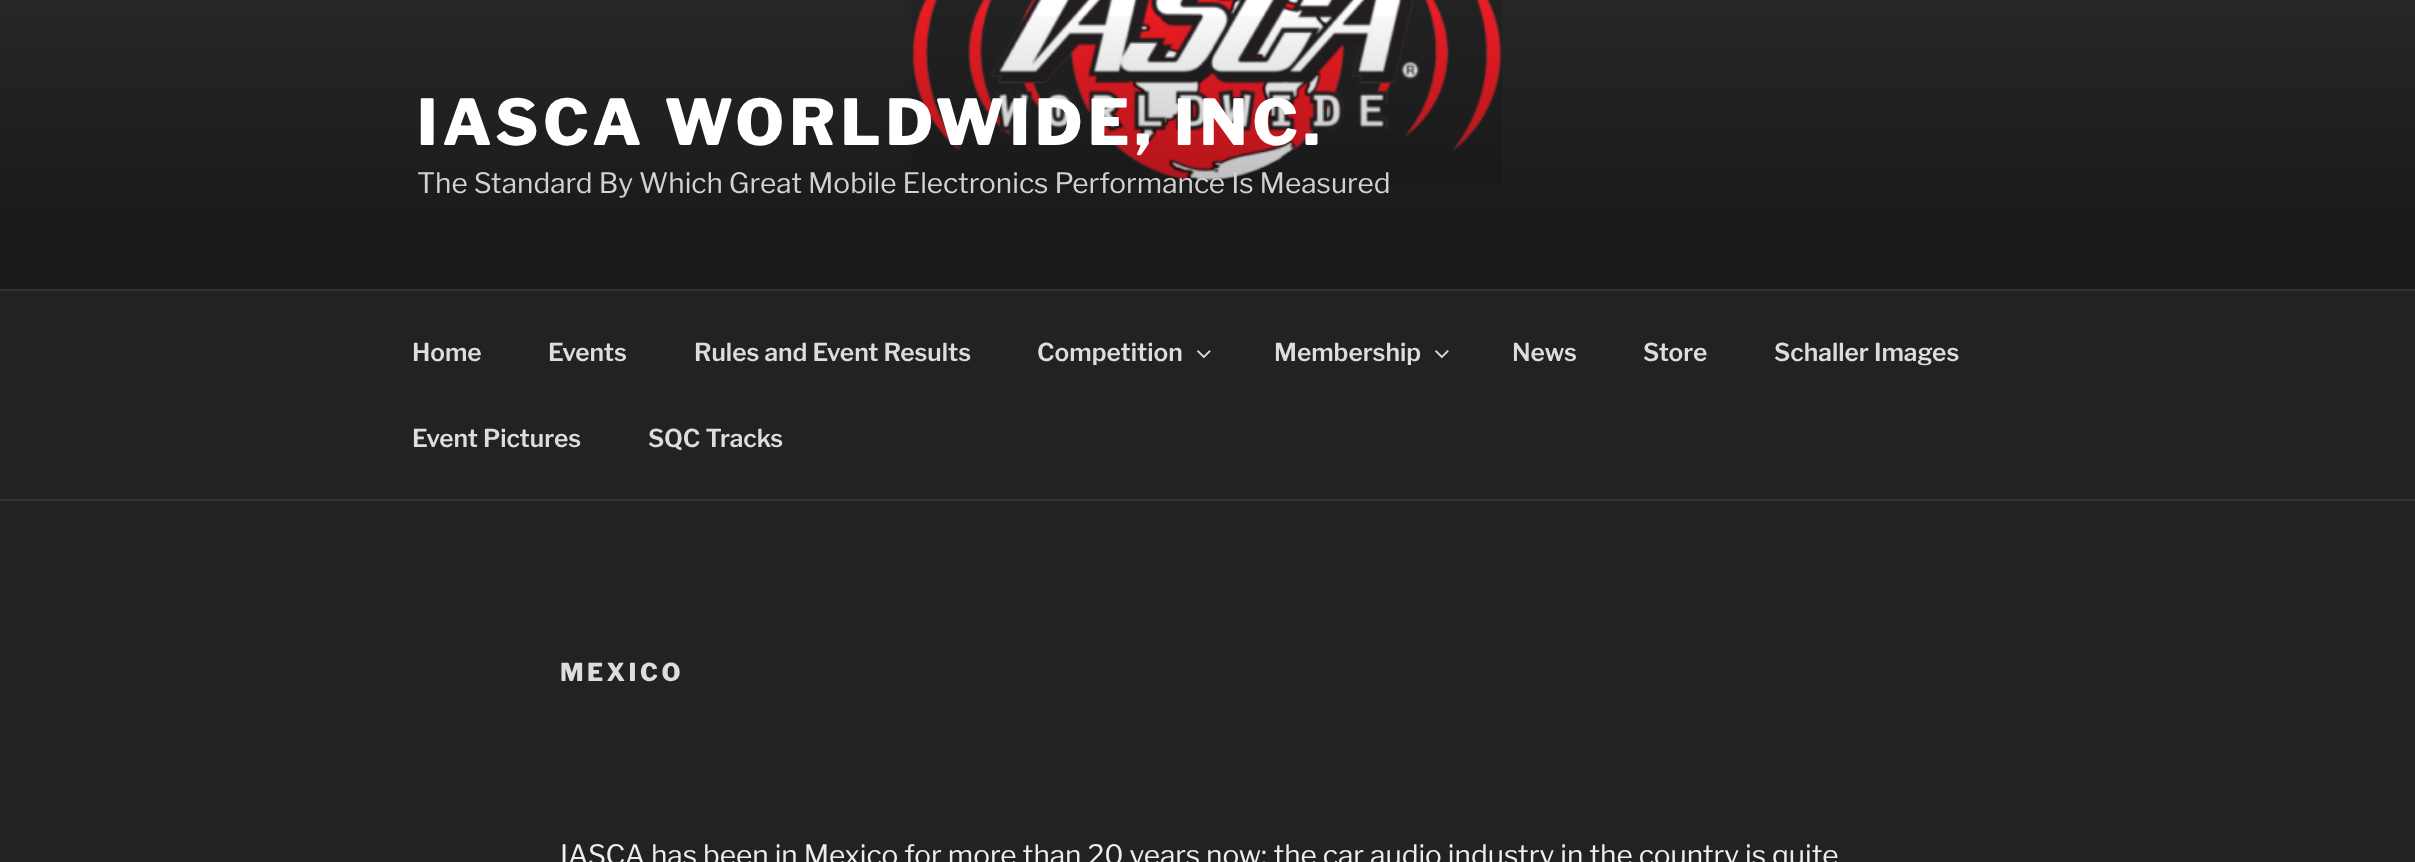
(async () => {
  const canvas = document.querySelector("canvas");
  canvas.width = 2415;
  canvas.height = 862;
  const ctx = canvas.getContext("2d");
  ctx.miterLimit = 4;
  ctx.fontKerning = "normal";
  async function loadImage(src) {
    const img = new Image();
    img.src = src;
    await img.decode();
    return img;
  }
  let gradient;

  ctx.fillStyle = "#222222";
  ctx.fillRect(0, 0, 2415, 862);
  ctx.fillStyle = "#262626";
  ctx.fillRect(0, 0, 2415, 289);
  ctx.drawImage(await loadImage("img/1.png"), 911, 0, 591, 184);
  gradient = ctx.createLinearGradient(1208, 0, 1208, 289);
  gradient.addColorStop(0, "rgba(0, 0, 0, 0)");
  gradient.addColorStop(0.75, "rgba(0, 0, 0, 0.3)");
  gradient.addColorStop(1, "rgba(0, 0, 0, 0.3)");
  ctx.fillStyle = gradient;
  ctx.fillRect(0, 16, 2415, 273);
  ctx.fillStyle = "#333333";
  ctx.fillRect(0, 289, 2415, 2);
  ctx.fillRect(0, 499, 2415, 2);
  ctx.drawImage(await loadImage("img/2.png"), 1197, 350, 14, 9);
  ctx.drawImage(await loadImage("img/2.png"), 1435, 350, 14, 9);
  ctx.letterSpacing = "5px";
  ctx.font = "100 63px Libre Franklin";
  ctx.fillStyle = "#ffffff";
  ctx.fillText("IASCA WORLDWIDE, INC.", 417, 145);
  ctx.letterSpacing = "0px";
  ctx.font = "100 28px 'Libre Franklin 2'";
  ctx.fillStyle = "#d2d2d2";
  ctx.fillText("The Standard By Which Great Mobile Electronics Performance Is Measured", 417, 193);
  ctx.font = "100 24.5px 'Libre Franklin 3'";
  ctx.fillStyle = "#dddddd";
  for (const [text, x, y] of [
    ["Home", 412, 361],
    ["Events", 548, 361],
    ["Rules and Event Results", 694, 361],
    ["Competition", 1037, 361],
    ["Membership", 1274, 361],
    ["News", 1512, 361],
    ["Store", 1643, 361],
    ["Schaller Images", 1774, 361],
    ["Event Pictures", 412, 447],
    ["SQC Tracks", 648, 447],
  ]) {
    ctx.fillText(text, x, y);
  }
  ctx.letterSpacing = "3.5px";
  ctx.font = "100 24.5px Libre Franklin";
  ctx.fillText("MEXICO", 560, 681);
  ctx.letterSpacing = "0px";
  ctx.font = "100 28px 'Libre Franklin 2'";
  ctx.fillStyle = "#eeeeee";
  ctx.fillText("IASCA has been in Mexico for more than 20 years now; the car audio industry in the country is quite", 560, 865);
})();
